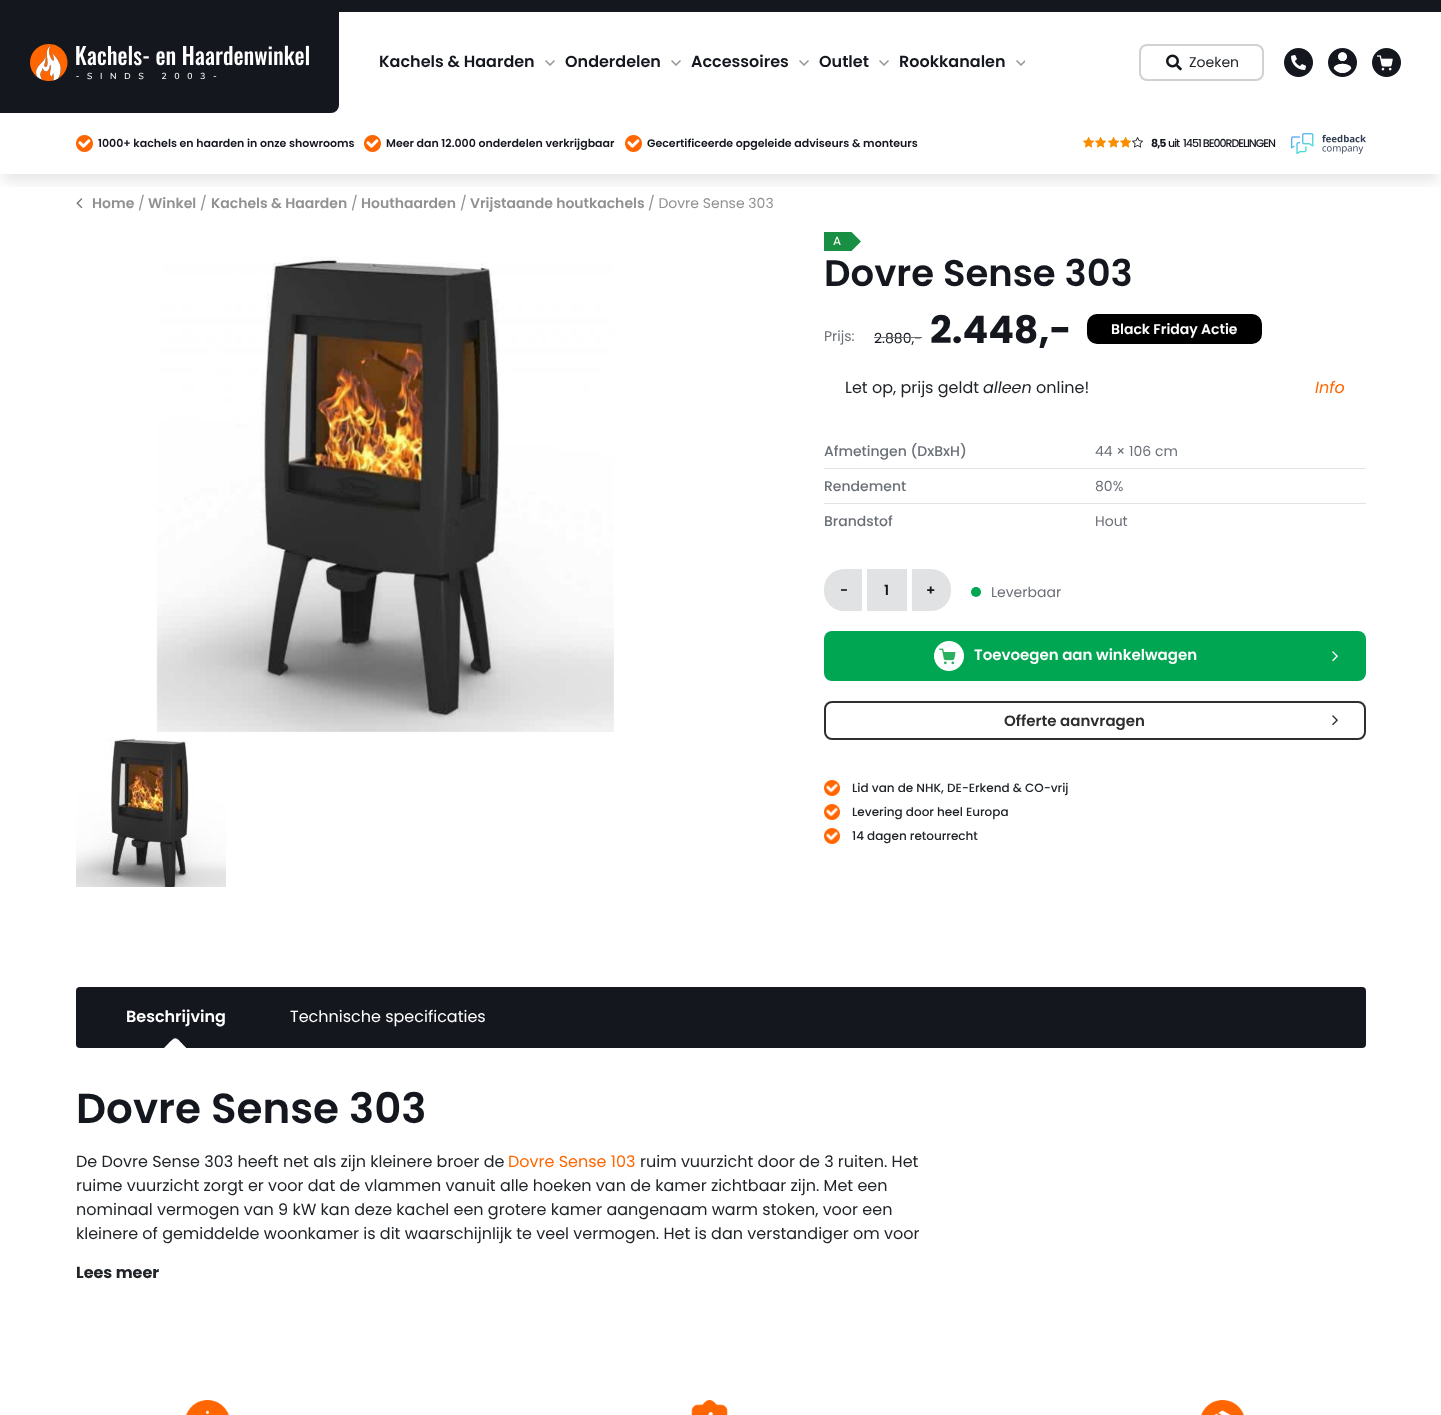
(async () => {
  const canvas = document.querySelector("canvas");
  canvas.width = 1441;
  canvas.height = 1415;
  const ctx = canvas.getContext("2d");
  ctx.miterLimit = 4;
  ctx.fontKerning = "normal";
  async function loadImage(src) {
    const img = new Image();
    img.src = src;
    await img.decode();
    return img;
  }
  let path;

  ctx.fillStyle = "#ffffff";
  ctx.fillRect(0, 0, 1441, 1415);
  ctx.fillStyle = "#14171e";
  ctx.fillRect(0, 0, 1441, 12);
  ctx.drawImage(await loadImage("img/12.png"), 76, 198, 7, 11);
  ctx.save();
  ctx.beginPath();
  ctx.rect(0, 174, 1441, 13);
  ctx.clip();
  ctx.fillStyle = "rgba(0, 0, 0, 0.1)";
  ctx.filter = "blur(7.5px)";
  ctx.beginPath();
  ctx.rect(3, 126, 1435, 55);
  ctx.fill();
  ctx.filter = "none";
  ctx.restore();
  ctx.beginPath();
  ctx.roundRect(0, 12, 339, 101, [0, 0, 8, 0]);
  ctx.fill();
  ctx.drawImage(await loadImage("img/1.png"), 30, 44, 279, 37);
  ctx.drawImage(await loadImage("img/2.png"), 545, 60, 10, 6);
  ctx.drawImage(await loadImage("img/2.png"), 671, 60, 10, 6);
  ctx.drawImage(await loadImage("img/2.png"), 799, 60, 10, 6);
  ctx.drawImage(await loadImage("img/2.png"), 879, 60, 10, 6);
  ctx.drawImage(await loadImage("img/3.png"), 1016, 60, 9, 6);
  ctx.beginPath();
  ctx.roundRect(1140, 45, 123, 35, 7);
  ctx.strokeStyle = "#d0d1d2";
  ctx.lineWidth = 2;
  ctx.stroke();
  ctx.drawImage(await loadImage("img/4.png"), 1166, 54, 16, 17);
  ctx.drawImage(await loadImage("img/5.png"), 1284, 48, 29, 29);
  ctx.drawImage(await loadImage("img/6.png"), 1328, 48, 29, 29);
  ctx.drawImage(await loadImage("img/7.png"), 1372, 48, 29, 29);
  ctx.drawImage(await loadImage("img/8.png"), 76, 135, 17, 17);
  ctx.drawImage(await loadImage("img/8.png"), 364, 135, 17, 17);
  ctx.drawImage(await loadImage("img/8.png"), 625, 135, 17, 17);
  ctx.drawImage(await loadImage("img/9.png"), 1083, 137, 12, 11);
  ctx.drawImage(await loadImage("img/9.png"), 1095, 137, 12, 11);
  ctx.drawImage(await loadImage("img/9.png"), 1108, 137, 12, 11);
  ctx.drawImage(await loadImage("img/9.png"), 1120, 137, 12, 11);
  ctx.drawImage(await loadImage("img/10.png"), 1132, 137, 12, 11);
  ctx.drawImage(await loadImage("img/11.png"), 1291, 133, 75, 21);
  ctx.drawImage(await loadImage("img/13.png"), 156, 256, 458, 476);
  ctx.drawImage(await loadImage("img/14.png"), 76, 737, 150, 150);
  ctx.fillStyle = "#198f43";
  path = new Path2D("M824 251V232H851.5L861 241.5L851.5 251Z");
  ctx.fill(path);
  ctx.fillStyle = "#000000";
  ctx.beginPath();
  ctx.roundRect(1087, 314, 175, 30, 10);
  ctx.fill();
  ctx.fillStyle = "#e1e2e4";
  ctx.fillRect(824, 468, 542, 1);
  ctx.fillRect(824, 503, 542, 1);
  ctx.beginPath();
  ctx.roundRect(824, 569, 38, 42, [20, 0, 0, 20]);
  ctx.fill();
  ctx.fillRect(867, 569, 40, 42);
  ctx.beginPath();
  ctx.roundRect(912, 569, 39, 42, [0, 20, 20, 0]);
  ctx.fill();
  ctx.fillStyle = "#01a652";
  ctx.beginPath();
  ctx.arc(976, 592, 5, 0, Math.PI * 2);
  ctx.fill();
  ctx.beginPath();
  ctx.roundRect(824, 631, 542, 50, 8);
  ctx.fill();
  ctx.drawImage(await loadImage("img/15.png"), 934, 641, 30, 30);
  ctx.drawImage(await loadImage("img/16.png"), 1332, 651, 6, 11);
  ctx.beginPath();
  ctx.roundRect(825, 702, 540, 37, 7);
  ctx.strokeStyle = "#2f2d2d";
  ctx.stroke();
  ctx.drawImage(await loadImage("img/17.png"), 1332, 715, 6, 11);
  ctx.drawImage(await loadImage("img/18.png"), 824, 780, 16, 16);
  ctx.drawImage(await loadImage("img/18.png"), 824, 804, 16, 16);
  ctx.drawImage(await loadImage("img/18.png"), 824, 828, 16, 16);
  ctx.fillStyle = "#14171e";
  ctx.beginPath();
  ctx.roundRect(76, 987, 1290, 61, 4);
  ctx.fill();
  ctx.save();
  ctx.beginPath();
  ctx.rect(164, 1038, 22, 11);
  ctx.clip();
  ctx.fillStyle = "#ffffff";
  path = new Path2D("M163 1049C177.5 1034.5 173 1034.5 187.5 1049Z");
  ctx.fill(path);
  ctx.restore();
  ctx.drawImage(await loadImage("img/19.png"), 186, 1400, 43, 15);
  ctx.drawImage(await loadImage("img/20.png"), 691, 1400, 37, 15);
  ctx.drawImage(await loadImage("img/21.png"), 1201, 1400, 43, 15);
  ctx.font = "600 16px Poppins";
  for (const [text, x, y] of [
    ["Kachels & Haarden", 379, 67],
    ["Onderdelen", 565, 67],
    ["Accessoires", 691, 67],
    ["Outlet", 819, 67],
    ["Rookkanalen", 899, 67],
  ]) {
    ctx.fillText(text, x, y);
  }
  ctx.font = "14px Poppins";
  ctx.fillStyle = "#212529";
  ctx.fillText("Zoeken", 1189, 67);
  ctx.font = "600 11px Poppins";
  ctx.fillStyle = "#14171e";
  for (const [text, x, y] of [
    ["1000+ kachels en haarden in onze showrooms", 98, 147],
    ["Meer dan 12.000 onderdelen verkrijgbaar", 386, 147],
    ["Gecertificeerde opgeleide adviseurs & monteurs", 647, 147],
  ]) {
    ctx.fillText(text, x, y);
  }
  ctx.letterSpacing = "-1px";
  ctx.font = "bold 11px Poppins";
  ctx.fillText("8,5", 1151, 147);
  ctx.font = "500 11px Poppins";
  ctx.fillText("uit", 1168, 147);
  ctx.fillText("1451 BE00RDELINGEN", 1183, 147);
  ctx.letterSpacing = "0px";
  ctx.font = "600 14px Poppins";
  ctx.fillStyle = "#919191";
  ctx.fillText("Home", 92, 208);
  ctx.font = "14px Poppins";
  ctx.fillText("/", 138, 208);
  ctx.font = "600 14px Poppins";
  ctx.fillText("Winkel", 148, 208);
  ctx.font = "14px Poppins";
  ctx.fillText("/", 200, 208);
  ctx.font = "600 14px Poppins";
  ctx.fillText("Kachels & Haarden", 211, 208);
  ctx.font = "14px Poppins";
  ctx.fillText("/", 351, 208);
  ctx.font = "600 14px Poppins";
  ctx.fillText("Houthaarden", 361, 208);
  ctx.font = "14px Poppins";
  ctx.fillText("/", 460, 208);
  ctx.font = "600 14px Poppins";
  ctx.fillText("Vrijstaande houtkachels", 470, 208);
  ctx.font = "14px Poppins";
  ctx.fillText("/ Dovre Sense 303", 648, 208);
  ctx.font = "12px Poppins";
  ctx.fillStyle = "#ffffff";
  ctx.fillText("A", 833, 245);
  ctx.font = "600 37px Poppins";
  ctx.fillStyle = "#14171e";
  ctx.fillText("Dovre Sense 303", 824, 286);
  ctx.font = "14px Poppins";
  ctx.fillStyle = "#6b7077";
  ctx.fillText("Prijs:", 824, 341);
  ctx.fillStyle = "#14171e";
  ctx.fillText("2.880,-", 874, 343);
  ctx.fillStyle = "#6b7077";
  ctx.fillRect(874, 337, 48, 1);
  ctx.font = "bold 38px Poppins";
  ctx.fillStyle = "#14171e";
  ctx.fillText("2.448,-", 930, 343);
  ctx.font = "600 14px Poppins";
  ctx.fillStyle = "#ffffff";
  ctx.fillText("Black Friday Actie", 1111, 334);
  ctx.font = "16px Poppins";
  ctx.fillStyle = "#212529";
  ctx.fillText("Let op, prijs geldt", 845, 393);
  ctx.font = "italic 16px Poppins";
  ctx.fillText("alleen", 983, 393);
  ctx.font = "16px Poppins";
  ctx.fillText("online!", 1036, 393);
  ctx.font = "italic 16px Poppins";
  ctx.fillStyle = "#ff6600";
  ctx.fillText("Info", 1315, 393);
  ctx.font = "500 14px Poppins";
  ctx.fillStyle = "#6b7077";
  ctx.fillText("Afmetingen (DxBxH)", 824, 456);
  ctx.font = "14px Poppins";
  ctx.fillText("44 × 106 cm", 1095, 456);
  ctx.font = "500 14px Poppins";
  ctx.fillText("Rendement", 824, 491);
  ctx.font = "14px Poppins";
  ctx.fillText("80%", 1095, 491);
  ctx.font = "500 14px Poppins";
  ctx.fillText("Brandstof", 824, 526);
  ctx.font = "14px Poppins";
  ctx.fillText("Hout", 1095, 526);
  ctx.font = "600 14px Poppins";
  ctx.fillStyle = "#14171e";
  for (const [text, x, y] of [
    ["-", 840, 595],
    ["1", 884, 595],
    ["+", 926, 595],
  ]) {
    ctx.fillText(text, x, y);
  }
  ctx.font = "14px Poppins";
  ctx.fillStyle = "#6b7077";
  ctx.fillText("Leverbaar", 991, 597);
  ctx.font = "600 15px Poppins";
  ctx.fillStyle = "#ffffff";
  ctx.fillText("Toevoegen aan winkelwagen", 974, 660);
  ctx.fillStyle = "#2f2d2d";
  ctx.fillText("Offerte aanvragen", 1004, 726);
  ctx.font = "500 12px Poppins";
  ctx.fillStyle = "#212529";
  for (const [text, x, y] of [
    ["Lid van de NHK, DE-Erkend & CO-vrij", 852, 792],
    ["Levering door heel Europa", 852, 816],
    ["14 dagen retourrecht", 852, 840],
  ]) {
    ctx.fillText(text, x, y);
  }
  ctx.font = "600 16px Poppins";
  ctx.fillStyle = "#ffffff";
  ctx.fillText("Beschrijving", 126, 1022);
  ctx.font = "16px Poppins";
  ctx.fillText("Technische specificaties", 290, 1022);
  ctx.font = "600 42px Poppins";
  ctx.fillStyle = "#14171e";
  ctx.fillText("Dovre Sense 303", 76, 1123);
  ctx.font = "16px Poppins";
  ctx.fillStyle = "#212529";
  ctx.fillText("De Dovre Sense 303 heeft net als zijn kleinere broer de", 76, 1167);
  ctx.fillStyle = "#ff6600";
  ctx.fillText("Dovre Sense 103", 508, 1167);
  ctx.fillStyle = "#212529";
  for (const [text, x, y] of [
    ["ruim vuurzicht door de 3 ruiten. Het", 640, 1167],
    ["ruime vuurzicht zorgt er voor dat de vlammen vanuit alle hoeken van de kamer zichtbaar zijn. Met een", 76, 1191],
    ["nominaal vermogen van 9 kW kan deze kachel een grotere kamer aangenaam warm stoken, voor een", 76, 1215],
    ["kleinere of gemiddelde woonkamer is dit waarschijnlijk te veel vermogen. Het is dan verstandiger om voor", 76, 1239],
  ]) {
    ctx.fillText(text, x, y);
  }
  ctx.font = "bold 16px Poppins";
  ctx.fillText("Lees meer", 76, 1278);
})();
